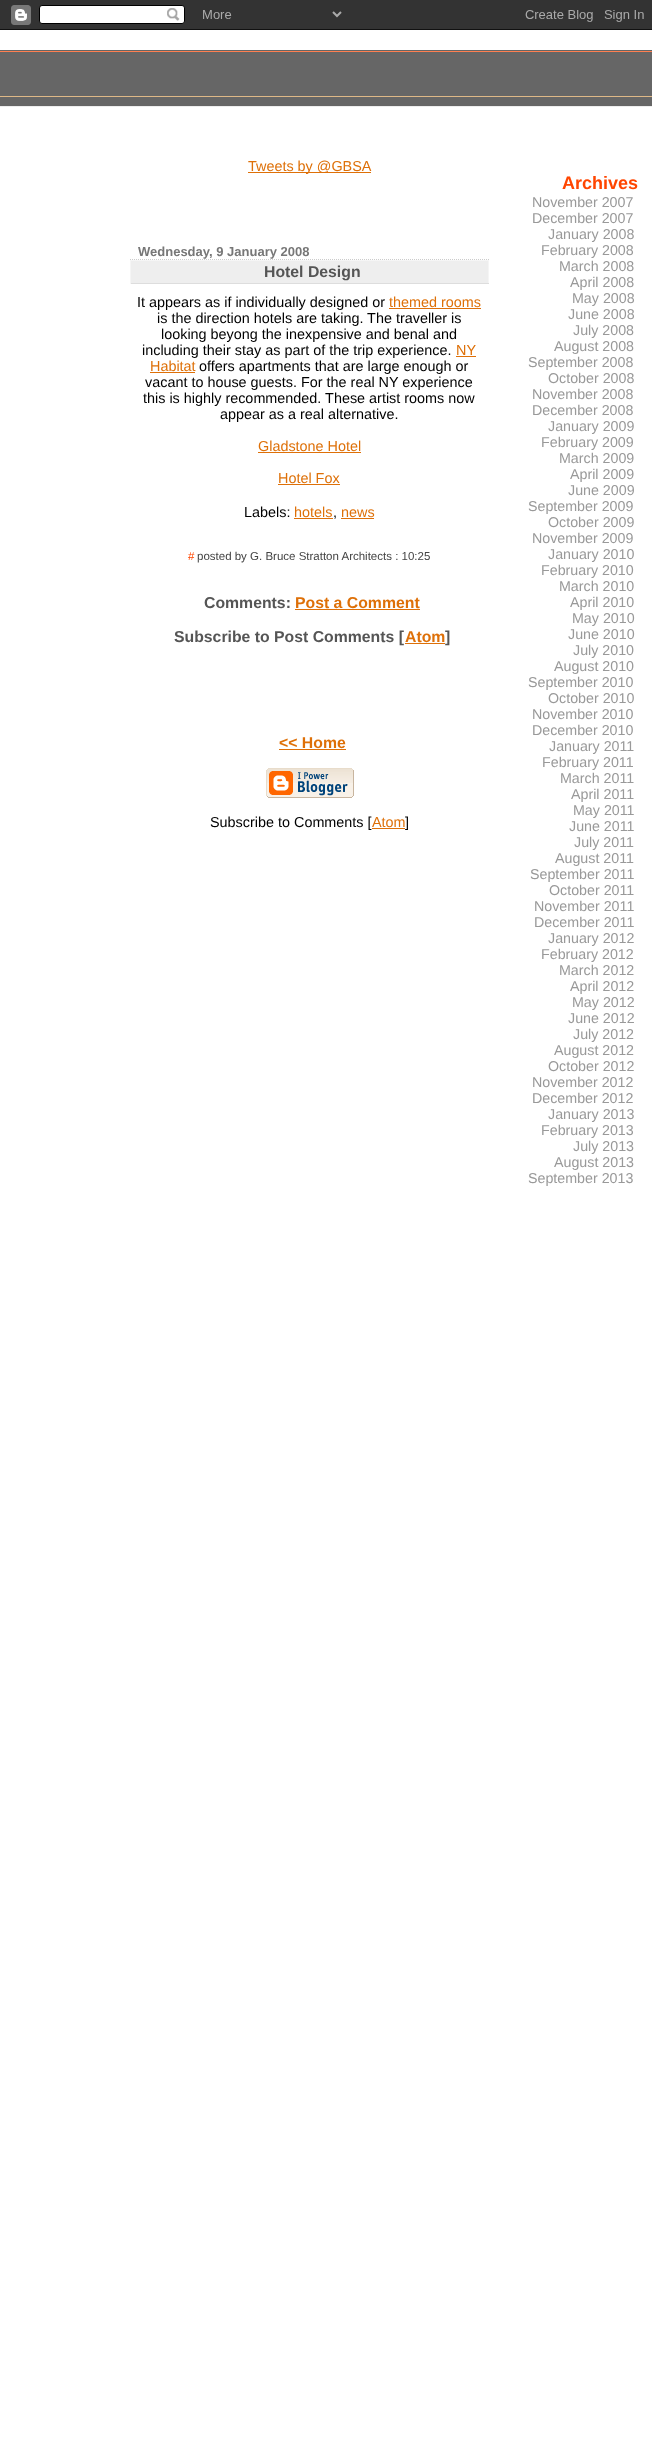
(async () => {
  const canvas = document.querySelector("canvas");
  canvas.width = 652;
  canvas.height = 2445;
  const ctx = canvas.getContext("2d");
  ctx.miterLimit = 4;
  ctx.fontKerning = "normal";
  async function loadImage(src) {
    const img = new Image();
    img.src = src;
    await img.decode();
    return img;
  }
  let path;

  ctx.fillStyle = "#ffffff";
  ctx.fillRect(0, 0, 652, 2445);
  ctx.drawImage(await loadImage("img/1.png"), 0, 0, 652, 30);
  for (const [x, y, w, h, color] of [
    [0, 50, 652, 56, "#666666"],
    [0, 106, 652, 1, "#eeeeee"],
    [0, 51, 652, 1, "#ff7f50"],
    [0, 96, 652, 1, "#deb887"],
    [248, 172, 123, 1, "#de7008"],
  ]) {
    ctx.fillStyle = color;
    ctx.fillRect(x, y, w, h);
  }
  path = new Path2D("M130 259.5H489");
  ctx.strokeStyle = "#cccccc";
  ctx.setLineDash([1, 1]);
  ctx.stroke(path);
  for (const [x, y, w, h, color] of [
    [131, 261, 357, 22, "#eeeeee"],
    [130, 260, 359, 1, "#f5f5f5"],
    [488, 260, 1, 24, "#f5f5f5"],
    [130, 283, 359, 1, "#dddddd"],
    [130, 260, 1, 24, "#f5f5f5"],
    [389, 308, 92, 1, "#de7008"],
    [456, 356, 20, 1, "#de7008"],
    [150, 372, 45, 1, "#de7008"],
    [258, 452, 103, 1, "#de7008"],
    [278, 484, 62, 1, "#de7008"],
    [294, 518, 39, 1, "#de7008"],
    [341, 518, 33, 1, "#de7008"],
    [295, 609, 125, 1, "#de7008"],
    [405, 643, 40, 1, "#de7008"],
    [279, 749, 67, 1, "#de7008"],
  ]) {
    ctx.fillStyle = color;
    ctx.fillRect(x, y, w, h);
  }
  ctx.drawImage(await loadImage("img/2.png"), 266, 768, 88, 30);
  ctx.fillRect(372, 828, 33, 1);
  ctx.font = "14.4px Liberation Sans";
  ctx.fillText("Tweets by @GBSA", 248, 171);
  ctx.font = "bold 13px Liberation Sans";
  ctx.fillStyle = "#777777";
  ctx.fillText("Wednesday, 9 January 2008", 138, 256);
  ctx.font = "bold 15.8px Liberation Sans";
  ctx.fillStyle = "#555555";
  ctx.fillText("Hotel Design", 264, 277);
  ctx.font = "14.4px Liberation Sans";
  ctx.fillStyle = "#000000";
  ctx.fillText("It appears as if individually designed or", 137, 307);
  ctx.fillStyle = "#de7008";
  ctx.fillText("themed rooms", 389, 307);
  ctx.fillStyle = "#000000";
  for (const [text, x, y] of [
    ["is the direction hotels are taking. The traveller is", 157, 323],
    ["looking beyong the inexpensive and benal and", 161, 339],
    ["including their stay as part of the trip experience.", 142, 355],
  ]) {
    ctx.fillText(text, x, y);
  }
  ctx.fillStyle = "#de7008";
  ctx.fillText("NY", 456, 355);
  ctx.fillText("Habitat", 150, 371);
  ctx.fillStyle = "#000000";
  for (const [text, x, y] of [
    ["offers apartments that are large enough or", 199, 371],
    ["vacant to house guests. For the real NY experience", 145, 387],
    ["this is highly recommended. These artist rooms now", 143, 403],
    ["appear as a real alternative.", 220, 419],
  ]) {
    ctx.fillText(text, x, y);
  }
  ctx.fillStyle = "#de7008";
  ctx.fillText("Gladstone Hotel", 258, 451);
  ctx.fillText("Hotel Fox", 278, 483);
  ctx.fillStyle = "#000000";
  ctx.fillText("Labels:", 244, 517);
  ctx.fillStyle = "#de7008";
  ctx.fillText("hotels", 294, 517);
  ctx.fillStyle = "#000000";
  ctx.fillText(",", 333, 517);
  ctx.fillStyle = "#de7008";
  ctx.fillText("news", 341, 517);
  ctx.font = "11.5px Liberation Sans";
  ctx.fillStyle = "#ff4500";
  ctx.fillText("#", 188, 560);
  ctx.fillStyle = "#444444";
  ctx.fillText("posted by G. Bruce Stratton Architects : 10:25", 197, 560);
  ctx.font = "bold 15.8px Liberation Sans";
  ctx.fillStyle = "#555555";
  ctx.fillText("Comments:", 204, 608);
  ctx.fillStyle = "#de7008";
  ctx.fillText("Post a Comment", 295, 608);
  ctx.fillStyle = "#555555";
  ctx.fillText("Subscribe to Post Comments [", 174, 642);
  ctx.fillStyle = "#de7008";
  ctx.fillText("Atom", 405, 642);
  ctx.fillStyle = "#555555";
  ctx.fillText("]", 445, 642);
  ctx.fillStyle = "#de7008";
  ctx.fillText("<< Home", 279, 748);
  ctx.font = "14.4px Liberation Sans";
  ctx.fillStyle = "#000000";
  ctx.fillText("Subscribe to Comments [", 210, 827);
  ctx.fillStyle = "#de7008";
  ctx.fillText("Atom", 372, 827);
  ctx.fillStyle = "#000000";
  ctx.fillText("]", 405, 827);
  ctx.font = "bold 18px Liberation Sans";
  ctx.fillStyle = "#ff4500";
  ctx.fillText("Archives", 562, 189);
  ctx.font = "14.25px Liberation Sans";
  ctx.fillStyle = "#999999";
  for (const [text, x, y] of [
    ["November 2007", 532, 207],
    ["December 2007", 532, 223],
    ["January 2008", 548, 239],
    ["February 2008", 541, 255],
    ["March 2008", 559, 271],
    ["April 2008", 570, 287],
    ["May 2008", 572, 303],
    ["June 2008", 568, 319],
    ["July 2008", 573, 335],
    ["August 2008", 554, 351],
    ["September 2008", 528, 367],
    ["October 2008", 548, 383],
    ["November 2008", 532, 399],
    ["December 2008", 532, 415],
    ["January 2009", 548, 431],
    ["February 2009", 541, 447],
    ["March 2009", 559, 463],
    ["April 2009", 570, 479],
    ["June 2009", 568, 495],
    ["September 2009", 528, 511],
    ["October 2009", 548, 527],
    ["November 2009", 532, 543],
    ["January 2010", 548, 559],
    ["February 2010", 541, 575],
    ["March 2010", 559, 591],
    ["April 2010", 570, 607],
    ["May 2010", 572, 623],
    ["June 2010", 568, 639],
    ["July 2010", 573, 655],
    ["August 2010", 554, 671],
    ["September 2010", 528, 687],
    ["October 2010", 548, 703],
    ["November 2010", 532, 719],
    ["December 2010", 532, 735],
    ["January 2011", 549, 751],
    ["February 2011", 542, 767],
    ["March 2011", 560, 783],
    ["April 2011", 571, 799],
    ["May 2011", 573, 815],
    ["June 2011", 569, 831],
    ["July 2011", 574, 847],
    ["August 2011", 555, 863],
    ["September 2011", 530, 879],
    ["October 2011", 549, 895],
    ["November 2011", 534, 911],
    ["December 2011", 534, 927],
    ["January 2012", 548, 943],
    ["February 2012", 541, 959],
    ["March 2012", 559, 975],
    ["April 2012", 570, 991],
    ["May 2012", 572, 1007],
    ["June 2012", 568, 1023],
    ["July 2012", 573, 1039],
    ["August 2012", 554, 1055],
    ["October 2012", 548, 1071],
    ["November 2012", 532, 1087],
    ["December 2012", 532, 1103],
    ["January 2013", 548, 1119],
    ["February 2013", 541, 1135],
    ["July 2013", 573, 1151],
    ["August 2013", 554, 1167],
    ["September 2013", 528, 1183],
  ]) {
    ctx.fillText(text, x, y);
  }
})();
